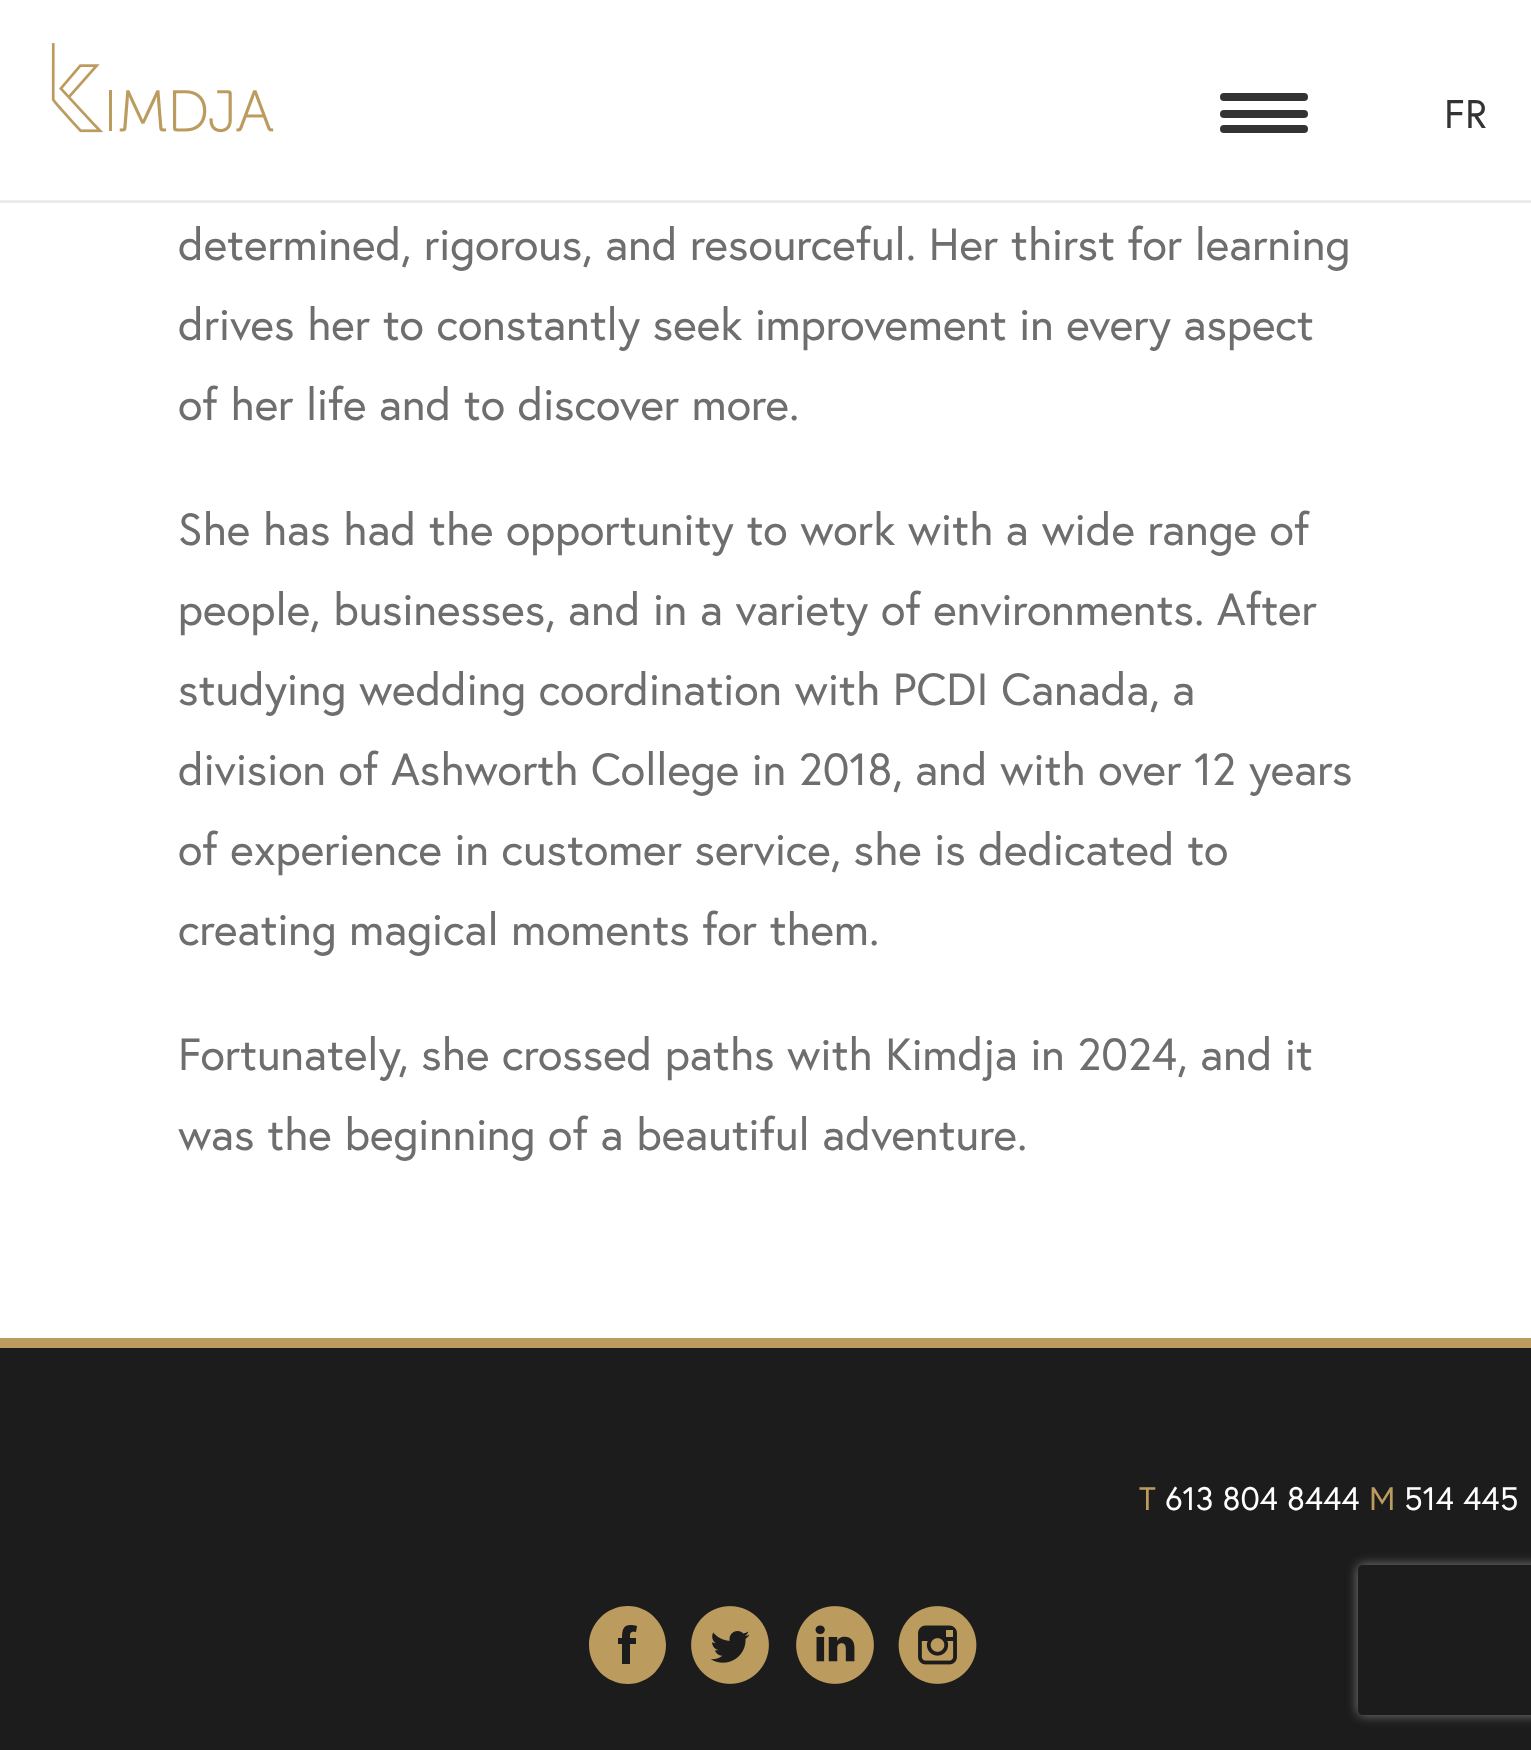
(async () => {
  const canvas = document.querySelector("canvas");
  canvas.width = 1531;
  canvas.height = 1750;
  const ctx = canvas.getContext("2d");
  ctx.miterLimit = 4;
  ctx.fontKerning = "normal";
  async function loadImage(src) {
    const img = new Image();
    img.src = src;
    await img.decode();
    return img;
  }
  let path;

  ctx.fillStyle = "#ffffff";
  ctx.fillRect(0, 0, 1531, 1750);
  ctx.fillStyle = "#ebebeb";
  path = new Path2D("M0 200V203H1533V3H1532V200Z");
  ctx.fill(path);
  ctx.drawImage(await loadImage("img/1.png"), 51, 43, 223, 90);
  ctx.fillStyle = "#333333";
  ctx.beginPath();
  ctx.roundRect(1220, 110, 88, 8, 4);
  ctx.fill();
  ctx.beginPath();
  ctx.roundRect(1220, 93, 88, 8, 4);
  ctx.fill();
  ctx.beginPath();
  ctx.roundRect(1220, 125, 88, 8, 4);
  ctx.fill();
  ctx.fillStyle = "#bc9b5f";
  ctx.fillRect(0, 1338, 1531, 10);
  ctx.fillStyle = "#1c1c1c";
  ctx.fillRect(0, 1348, 1531, 402);
  ctx.fillStyle = "#bc9b5f";
  path = new Path2D("M628 1606C606 1606 589 1624 589 1645C589 1666 606 1684 628 1684C649 1684 666 1666 666 1645C666 1624 649 1606 628 1606ZM636 1638V1644H630V1664H622V1644H618V1638H622C622 1627 625 1623 637 1626L636 1632C630 1631 630 1633 630 1638Z");
  ctx.fill(path);
  ctx.drawImage(await loadImage("img/2.png"), 691, 1606, 78, 78);
  ctx.drawImage(await loadImage("img/3.png"), 796, 1606, 78, 78);
  ctx.drawImage(await loadImage("img/4.png"), 898, 1606, 79, 78);
  ctx.save();
  path = new Path2D("M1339 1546H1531V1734H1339ZM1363 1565H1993C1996 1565 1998 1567 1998 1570V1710C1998 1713 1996 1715 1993 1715H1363C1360 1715 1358 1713 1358 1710V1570C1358 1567 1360 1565 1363 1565Z");
  ctx.clip(path, "evenodd");
  ctx.fillStyle = "#808080";
  ctx.filter = "blur(6px)";
  ctx.beginPath();
  ctx.roundRect(1358, 1565, 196, 150, 5);
  ctx.fill();
  ctx.filter = "none";
  ctx.restore();
  ctx.font = "40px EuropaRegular";
  ctx.fillStyle = "#333333";
  ctx.fillText("FR", 1444, 128);
  ctx.font = "45px EuropaRegular";
  ctx.fillStyle = "#6e6e6e";
  for (const [text, x, y] of [
    ["determined, rigorous, and resourceful. Her thirst for learning", 178, 260],
    ["drives her to constantly seek improvement in every aspect", 178, 340],
    ["of her life and to discover more.", 178, 420],
    ["She has had the opportunity to work with a wide range of", 178, 545],
    ["people, businesses, and in a variety of environments. After", 178, 625],
    ["studying wedding coordination with PCDI Canada, a", 178, 705],
    ["division of Ashworth College in 2018, and with over 12 years", 178, 785],
    ["of experience in customer service, she is dedicated to", 178, 865],
    ["creating magical moments for them.", 178, 945],
    ["Fortunately, she crossed paths with Kimdja in 2024, and it", 178, 1070],
    ["was the beginning of a beautiful adventure.", 178, 1150],
  ]) {
    ctx.fillText(text, x, y);
  }
  ctx.font = "32.5px EuropaRegular";
  ctx.fillStyle = "#bc9b5f";
  ctx.fillText("T", 1139, 1510);
  ctx.fillStyle = "#ffffff";
  ctx.fillText("613 804 8444", 1165, 1510);
  ctx.fillStyle = "#bc9b5f";
  ctx.fillText("M", 1369, 1510);
  ctx.fillStyle = "#ffffff";
  ctx.fillText("514 445", 1404, 1510);
})();
